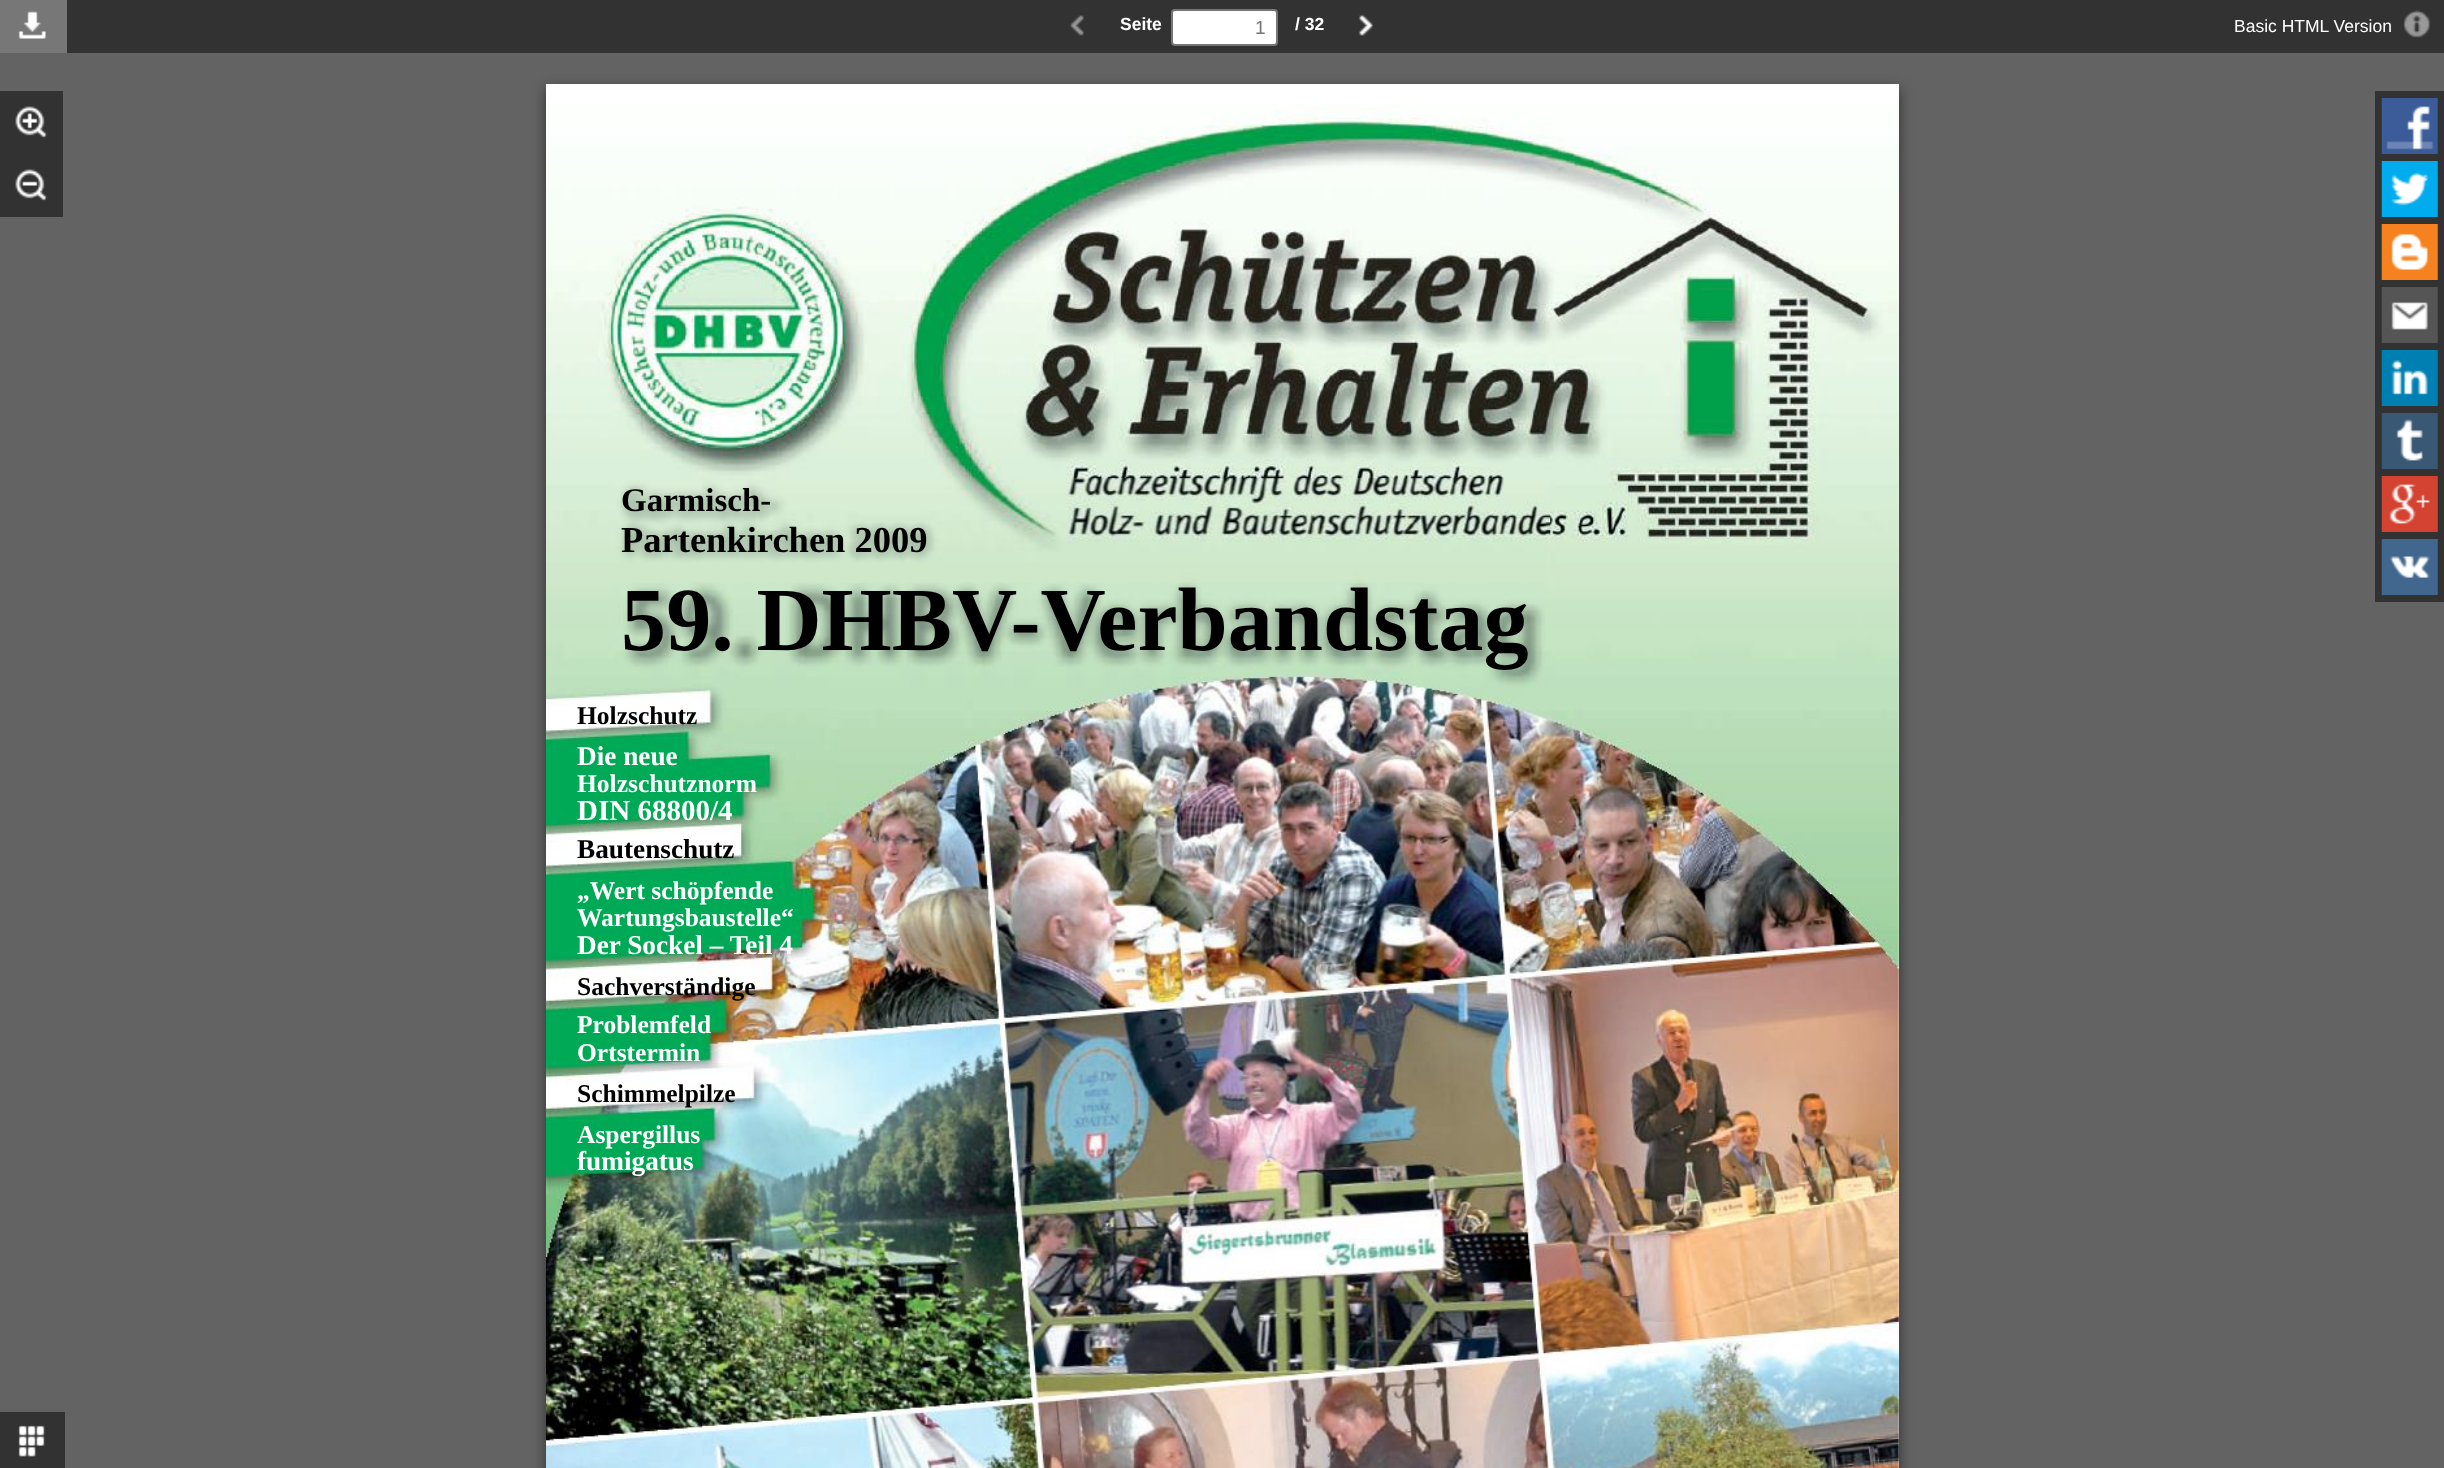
(async () => {
  const canvas = document.querySelector("canvas");
  canvas.width = 2444;
  canvas.height = 1468;
  const ctx = canvas.getContext("2d");
  ctx.miterLimit = 4;
  ctx.fontKerning = "normal";
  async function loadImage(src) {
    const img = new Image();
    img.src = src;
    await img.decode();
    return img;
  }

  ctx.fillStyle = "#636363";
  ctx.fillRect(0, 0, 2444, 1468);
  ctx.fillStyle = "#323232";
  ctx.fillRect(67, 0, 2377, 53);
  ctx.fillStyle = "#777777";
  ctx.fillRect(0, 0, 67, 53);
  ctx.drawImage(await loadImage("img/1.png"), 18, 10, 28, 29);
  ctx.drawImage(await loadImage("img/2.png"), 1070, 15, 14, 21);
  ctx.fillStyle = "#ffffff";
  ctx.beginPath();
  ctx.roundRect(1172, 10, 105, 35, 3);
  ctx.fill();
  ctx.strokeStyle = "#767676";
  ctx.lineWidth = 2;
  ctx.stroke();
  ctx.drawImage(await loadImage("img/3.png"), 1358, 15, 15, 21);
  ctx.drawImage(await loadImage("img/4.png"), 2403, 10, 28, 28);
  ctx.fillStyle = "#323232";
  ctx.fillRect(0, 91, 63, 126);
  ctx.drawImage(await loadImage("img/5.png"), 15, 106, 33, 33);
  ctx.drawImage(await loadImage("img/6.png"), 15, 169, 33, 33);
  ctx.fillRect(2375, 91, 69, 511);
  ctx.drawImage(await loadImage("img/7.png"), 2381, 98, 57, 56);
  ctx.drawImage(await loadImage("img/8.png"), 2381, 161, 57, 56);
  ctx.drawImage(await loadImage("img/9.png"), 2381, 224, 57, 56);
  ctx.drawImage(await loadImage("img/10.png"), 2381, 287, 57, 56);
  ctx.drawImage(await loadImage("img/11.png"), 2381, 350, 57, 56);
  ctx.drawImage(await loadImage("img/12.png"), 2381, 413, 57, 56);
  ctx.drawImage(await loadImage("img/13.png"), 2381, 476, 57, 56);
  ctx.drawImage(await loadImage("img/14.png"), 2381, 539, 57, 56);
  ctx.fillStyle = "rgba(0, 0, 0, 0.5)";
  ctx.filter = "blur(7px)";
  ctx.beginPath();
  ctx.rect(546, 89, 1353, 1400);
  ctx.fill();
  ctx.filter = "none";
  ctx.fillStyle = "#ffffff";
  ctx.fillRect(546, 84, 1353, 1384);
  ctx.drawImage(await loadImage("img/15.png"), 546, 104, 1353, 1364);
  ctx.fillStyle = "#323232";
  ctx.fillRect(0, 1412, 65, 56);
  ctx.drawImage(await loadImage("img/16.png"), 18, 1425, 27, 32);
  ctx.font = "bold 17.5px Liberation Sans";
  ctx.fillStyle = "#ffffff";
  ctx.fillText("Seite", 1120, 30);
  ctx.font = "19px Liberation Sans";
  ctx.fillStyle = "#757575";
  ctx.fillText("1", 1255, 34);
  ctx.font = "bold 17.5px Liberation Sans";
  ctx.fillStyle = "#ffffff";
  ctx.fillText("/ 32", 1295, 30);
  ctx.font = "17.5px Liberation Sans";
  ctx.fillText("Basic HTML Version", 2234, 32);
  ctx.font = "bold 33px Liberation Serif";
  ctx.fillStyle = "#000000";
  ctx.fillText("Garmisch-", 621, 511);
  ctx.font = "bold 36.5px Liberation Serif";
  ctx.fillText("Partenkirchen 2009", 621, 552);
  ctx.font = "bold 90.25px Liberation Serif";
  ctx.fillText("59. DHBV-Verbandstag", 621, 650);
  ctx.font = "bold 25.5px Liberation Serif";
  ctx.fillText("Holzschutz", 577, 724);
  ctx.font = "bold 27.25px Liberation Serif";
  ctx.fillStyle = "#ffffff";
  ctx.fillText("Die neue", 577, 765);
  ctx.font = "bold 25.5px Liberation Serif";
  ctx.fillText("Holzschutznorm", 577, 792);
  ctx.font = "bold 29px Liberation Serif";
  ctx.fillText("DIN 68800/4", 577, 820);
  ctx.font = "bold 27.25px Liberation Serif";
  ctx.fillStyle = "#000000";
  ctx.fillText("Bautenschutz", 577, 858);
  ctx.font = "bold 25.5px Liberation Serif";
  ctx.fillStyle = "#ffffff";
  ctx.fillText("„Wert schöpfende", 577, 899);
  ctx.fillText("Wartungsbaustelle“", 577, 926);
  ctx.font = "bold 27.25px Liberation Serif";
  ctx.fillText("Der Sockel – Teil 4", 577, 954);
  ctx.font = "bold 25.5px Liberation Serif";
  ctx.fillStyle = "#000000";
  ctx.fillText("Sachverständige", 577, 995);
  ctx.fillStyle = "#ffffff";
  ctx.fillText("Problemfeld", 577, 1033);
  ctx.fillText("Ortstermin", 577, 1061);
  ctx.fillStyle = "#000000";
  ctx.fillText("Schimmelpilze", 577, 1102);
  ctx.fillStyle = "#ffffff";
  ctx.fillText("Aspergillus", 577, 1143);
  ctx.font = "bold 27.25px Liberation Serif";
  ctx.fillText("fumigatus", 577, 1170);
})();
